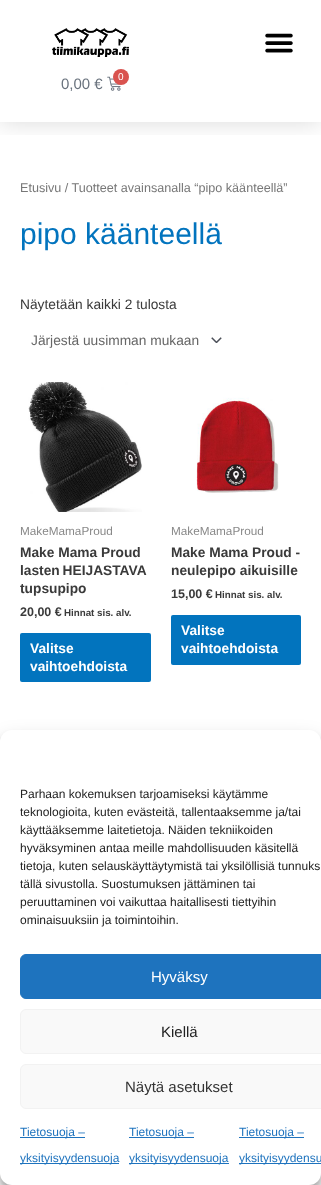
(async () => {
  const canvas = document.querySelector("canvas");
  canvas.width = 321;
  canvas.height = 1185;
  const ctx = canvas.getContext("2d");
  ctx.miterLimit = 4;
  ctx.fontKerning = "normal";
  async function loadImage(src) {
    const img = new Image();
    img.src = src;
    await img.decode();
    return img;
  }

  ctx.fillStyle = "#ffffff";
  ctx.fillRect(0, 0, 321, 1185);
  ctx.save();
  ctx.beginPath();
  ctx.rect(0, 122, 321, 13);
  ctx.clip();
  ctx.fillStyle = "rgba(0, 0, 0, 0.15)";
  ctx.filter = "blur(12px)";
  ctx.beginPath();
  ctx.rect(0, 0, 321, 122);
  ctx.fill();
  ctx.filter = "none";
  ctx.restore();
  ctx.drawImage(await loadImage("img/1.png"), 52, 28, 77, 29);
  ctx.drawImage(await loadImage("img/2.png"), 265, 33, 28, 20);
  ctx.drawImage(await loadImage("img/3.png"), 107, 76, 14, 15);
  ctx.fillStyle = "#d9534f";
  ctx.beginPath();
  ctx.arc(121, 77, 8, 0, Math.PI * 2);
  ctx.fill();
  ctx.drawImage(await loadImage("img/4.png"), 211, 337, 11, 6);
  ctx.drawImage(await loadImage("img/5.png"), 28, 382, 114, 130);
  ctx.fillStyle = "#0274be";
  ctx.beginPath();
  ctx.roundRect(20, 633, 131, 49, 2);
  ctx.fill();
  ctx.drawImage(await loadImage("img/6.png"), 196, 397, 83, 96);
  ctx.beginPath();
  ctx.roundRect(171, 615, 130, 50, 2);
  ctx.fill();
  ctx.fillStyle = "rgba(0, 0, 0, 0.23)";
  ctx.filter = "blur(3px)";
  ctx.beginPath();
  ctx.roundRect(0, 736, 321, 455, 12);
  ctx.fill();
  ctx.filter = "none";
  ctx.fillStyle = "rgba(0, 0, 0, 0.19)";
  ctx.filter = "blur(10px)";
  ctx.beginPath();
  ctx.roundRect(0, 740, 321, 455, 12);
  ctx.fill();
  ctx.filter = "none";
  ctx.fillStyle = "#ffffff";
  ctx.beginPath();
  ctx.roundRect(0, 730, 321, 455, 12);
  ctx.fill();
  ctx.fillStyle = "#1e73be";
  ctx.beginPath();
  ctx.roundRect(20.5, 954.5, 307, 44, 5.5);
  ctx.fill();
  ctx.strokeStyle = "#1e73be";
  ctx.stroke();
  ctx.fillStyle = "#f9f9f9";
  ctx.beginPath();
  ctx.roundRect(20.5, 1009.5, 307, 44, 5.5);
  ctx.fill();
  ctx.strokeStyle = "#f2f2f2";
  ctx.stroke();
  ctx.beginPath();
  ctx.roundRect(20.5, 1064.5, 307, 44, 5.5);
  ctx.fill();
  ctx.stroke();
  for (const [x, y, w, h, color] of [
    [20, 1137, 65, 1, "#1e73be"],
    [20, 1163, 99, 1, "#1e73be"],
    [129, 1137, 65, 1, "#1e73be"],
    [129, 1163, 100, 1, "#1e73be"],
    [239, 1137, 65, 1, "#1e73be"],
    [239, 1163, 82, 1, "#1e73be"],
  ]) {
    ctx.fillStyle = color;
    ctx.fillRect(x, y, w, h);
  }
  ctx.font = "10px Liberation Sans";
  ctx.fillStyle = "#ffffff";
  ctx.fillText("0", 118, 80);
  ctx.font = "15px Liberation Sans";
  ctx.fillStyle = "#69727d";
  ctx.fillText("0,00 €", 61, 89);
  ctx.font = "12.6px Liberation Sans";
  ctx.fillStyle = "#777777";
  ctx.fillText("Etusivu / Tuotteet avainsanalla “pipo käänteellä”", 20, 192);
  ctx.font = "30px Liberation Sans";
  ctx.fillStyle = "#0274be";
  ctx.fillText("pipo käänteellä", 20, 244);
  ctx.font = "13.75px Liberation Sans";
  ctx.fillStyle = "#3a3a3a";
  ctx.fillText("Näytetään kaikki 2 tulosta", 20, 309);
  ctx.fillStyle = "#666666";
  ctx.fillText("Järjestä uusimman mukaan", 31, 345);
  ctx.font = "11.75px Liberation Sans";
  ctx.fillStyle = "#898989";
  ctx.fillText("MakeMamaProud", 20, 535);
  ctx.font = "bold 13.75px Liberation Sans";
  ctx.fillStyle = "#3a3a3a";
  ctx.fillText("Make Mama Proud", 20, 557);
  ctx.wordSpacing = "-1px";
  ctx.fillText("lasten HEIJASTAVA", 20, 575);
  ctx.wordSpacing = "0px";
  ctx.fillText("tupsupipo", 20, 593);
  ctx.font = "bold 12.5px Liberation Sans";
  ctx.fillText("20,00 €", 20, 616);
  ctx.font = "bold 9.75px Liberation Sans";
  ctx.fillText("Hinnat sis. alv.", 64, 616);
  ctx.font = "bold 13.75px Liberation Sans";
  ctx.fillStyle = "#ffffff";
  ctx.fillText("Valitse", 30, 653);
  ctx.fillText("vaihtoehdoista", 30, 671);
  ctx.font = "11.75px Liberation Sans";
  ctx.fillStyle = "#898989";
  ctx.fillText("MakeMamaProud", 171, 535);
  ctx.font = "bold 13.75px Liberation Sans";
  ctx.fillStyle = "#3a3a3a";
  ctx.fillText("Make Mama Proud -", 171, 557);
  ctx.fillText("neulepipo aikuisille", 171, 575);
  ctx.font = "bold 12.5px Liberation Sans";
  ctx.fillText("15,00 €", 171, 598);
  ctx.font = "bold 9.75px Liberation Sans";
  ctx.fillText("Hinnat sis. alv.", 215, 598);
  ctx.font = "bold 13.75px Liberation Sans";
  ctx.fillStyle = "#ffffff";
  ctx.fillText("Valitse", 181, 635);
  ctx.fillText("vaihtoehdoista", 181, 653);
  ctx.font = "12px Liberation Sans";
  ctx.fillStyle = "#222222";
  for (const [text, x, y] of [
    ["Parhaan kokemuksen tarjoamiseksi käytämme", 20, 798],
    ["teknologioita, kuten evästeitä, tallentaaksemme ja/tai", 20, 816],
    ["käyttääksemme laitetietoja. Näiden tekniikoiden", 20, 834],
    ["hyväksyminen antaa meille mahdollisuuden käsitellä", 20, 852],
    ["tietoja, kuten selauskäyttäytymistä tai yksilöllisiä tunnuks", 20, 870],
    ["tällä sivustolla. Suostumuksen jättäminen tai", 20, 888],
    ["peruuttaminen voi vaikuttaa haitallisesti tiettyihin", 20, 906],
    ["ominaisuuksiin ja toimintoihin.", 20, 924],
  ]) {
    ctx.fillText(text, x, y);
  }
  ctx.font = "15px Liberation Sans";
  ctx.fillStyle = "#ffffff";
  ctx.fillText("Hyväksy", 151, 982);
  ctx.fillStyle = "#222222";
  ctx.fillText("Kiellä", 161, 1037);
  ctx.fillStyle = "#333333";
  ctx.fillText("Näytä asetukset", 125, 1092);
  ctx.font = "12px Liberation Sans";
  ctx.fillStyle = "#1e73be";
  for (const [text, x, y] of [
    ["Tietosuoja –", 20, 1136],
    ["yksityisyydensuoja", 20, 1162],
    ["Tietosuoja –", 129, 1136],
    ["yksityisyydensuoja", 129, 1162],
    ["Tietosuoja –", 239, 1136],
    ["yksityisyydensu", 239, 1162],
  ]) {
    ctx.fillText(text, x, y);
  }
})();
